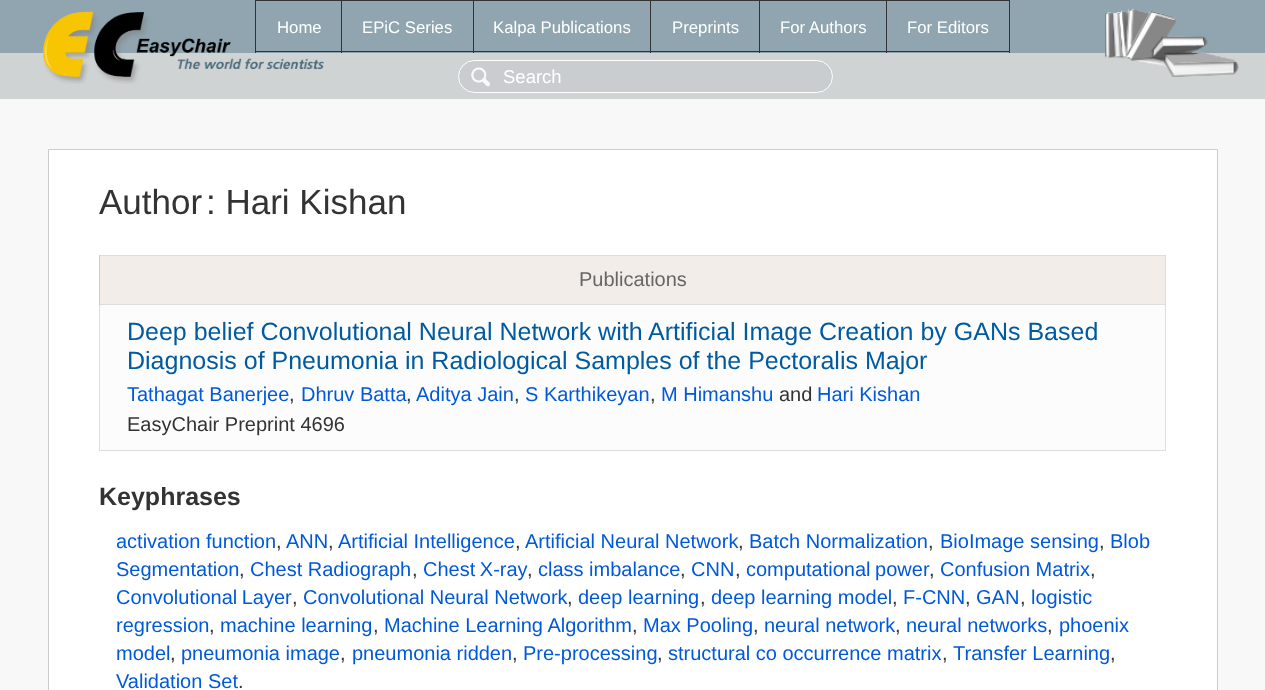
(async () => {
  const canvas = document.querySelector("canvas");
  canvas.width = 1265;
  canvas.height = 690;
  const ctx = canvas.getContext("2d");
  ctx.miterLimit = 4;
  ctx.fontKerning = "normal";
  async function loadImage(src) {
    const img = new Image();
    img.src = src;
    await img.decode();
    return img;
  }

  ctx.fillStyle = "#90a5b0";
  ctx.fillRect(0, 0, 1265, 690);
  ctx.fillStyle = "#d0d3d4";
  ctx.fillRect(0, 54, 1264, 44);
  ctx.fillRect(0, 53, 1265, 1);
  ctx.drawImage(await loadImage("img/1.png"), 43, 11, 281, 73);
  for (const [x, y, w, h, color] of [
    [886, 0, 124, 1, "#333333"],
    [1009, 0, 1, 53, "#333333"],
    [886, 51, 124, 1, "#333333"],
    [886, 0, 1, 53, "#333333"],
    [759, 0, 129, 1, "#333333"],
    [759, 51, 129, 1, "#333333"],
    [759, 0, 1, 53, "#333333"],
    [650, 0, 110, 1, "#333333"],
    [650, 51, 110, 1, "#333333"],
    [650, 0, 1, 53, "#333333"],
    [473, 0, 178, 1, "#333333"],
    [473, 51, 178, 1, "#333333"],
    [473, 0, 1, 53, "#333333"],
    [341, 0, 133, 1, "#333333"],
    [341, 51, 133, 1, "#333333"],
    [341, 0, 1, 53, "#333333"],
    [255, 0, 88, 1, "#333333"],
    [255, 51, 88, 1, "#333333"],
    [255, 0, 1, 53, "#333333"],
  ]) {
    ctx.fillStyle = color;
    ctx.fillRect(x, y, w, h);
  }
  ctx.drawImage(await loadImage("img/2.png"), 1105, 8, 134, 69);
  ctx.fillStyle = "#d0d3d4";
  ctx.fillRect(1264, 53, 1, 46);
  ctx.fillRect(0, 98, 1265, 1);
  ctx.fillStyle = "#c9cdd0";
  ctx.beginPath();
  ctx.roundRect(458, 60, 375, 33, 16.5);
  ctx.fill();
  ctx.drawImage(await loadImage("img/3.png"), 471, 67, 19, 20);
  ctx.beginPath();
  ctx.roundRect(458.5, 60.5, 374, 32, 16);
  ctx.strokeStyle = "#ffffff";
  ctx.stroke();
  ctx.fillStyle = "#f8f8f8";
  ctx.fillRect(0, 99, 1265, 591);
  ctx.fillStyle = "#ffffff";
  ctx.beginPath();
  ctx.rect(48.5, 149.5, 1169, 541);
  ctx.fill();
  ctx.strokeStyle = "#cccccc";
  ctx.stroke();
  for (const [x, y, w, h, color] of [
    [99, 255, 1067, 1, "#dedede"],
    [1165, 255, 1, 196, "#dedede"],
    [99, 450, 1067, 1, "#dedede"],
    [99, 305, 1, 146, "#dedede"],
    [100, 256, 1065, 48, "#f2ede9"],
    [99, 304, 1067, 1, "#dedede"],
    [99, 255, 1, 50, "#cccccc"],
    [100, 305, 1065, 145, "#fcfcfc"],
  ]) {
    ctx.fillStyle = color;
    ctx.fillRect(x, y, w, h);
  }
  ctx.font = "16.75px Liberation Sans";
  ctx.fillStyle = "#ffffff";
  for (const [text, x, y] of [
    ["Home", 277, 33],
    ["EPiC Series", 362, 33],
    ["Kalpa Publications", 493, 33],
    ["Preprints", 672, 33],
    ["For Authors", 780, 33],
    ["For Editors", 907, 33],
  ]) {
    ctx.fillText(text, x, y);
  }
  ctx.font = "18.5px Liberation Sans";
  ctx.fillText("Search", 503, 83);
  ctx.font = "35px Liberation Sans";
  ctx.fillStyle = "#333333";
  ctx.fillText("Author", 99, 214);
  ctx.fillText(": Hari Kishan", 206, 214);
  ctx.font = "20px Liberation Sans";
  ctx.fillStyle = "#666666";
  ctx.fillText("Publications", 579, 286);
  ctx.font = "25px Liberation Sans";
  ctx.fillStyle = "#005a9f";
  ctx.fillText("Deep belief Convolutional Neural Network with Artificial Image Creation by GANs Based", 127, 340);
  ctx.fillText("Diagnosis of Pneumonia in Radiological Samples of the Pectoralis Major", 127, 369);
  ctx.font = "20px Liberation Sans";
  ctx.fillStyle = "#0059db";
  ctx.fillText("Tathagat Banerjee", 127, 401);
  ctx.fillStyle = "#333333";
  ctx.fillText(",", 289, 401);
  ctx.fillStyle = "#0059db";
  ctx.fillText("Dhruv Batta", 301, 401);
  ctx.fillStyle = "#333333";
  ctx.fillText(",", 406, 401);
  ctx.fillStyle = "#0059db";
  ctx.fillText("Aditya Jain", 416, 401);
  ctx.fillStyle = "#333333";
  ctx.fillText(",", 514, 401);
  ctx.fillStyle = "#0059db";
  ctx.fillText("S Karthikeyan", 525, 401);
  ctx.fillStyle = "#333333";
  ctx.fillText(",", 650, 401);
  ctx.fillStyle = "#0059db";
  ctx.fillText("M Himanshu", 661, 401);
  ctx.fillStyle = "#333333";
  ctx.fillText("and", 779, 401);
  ctx.fillStyle = "#0059db";
  ctx.fillText("Hari Kishan", 817, 401);
  ctx.fillStyle = "#333333";
  ctx.fillText("EasyChair Preprint 4696", 127, 431);
  ctx.font = "bold 25px Liberation Sans";
  ctx.fillText("Keyphrases", 99, 505);
  ctx.font = "20px Liberation Sans";
  ctx.fillStyle = "#0059db";
  ctx.fillText("activation function", 116, 548);
  ctx.fillStyle = "#333333";
  ctx.fillText(",", 276, 548);
  ctx.fillStyle = "#0059db";
  ctx.fillText("ANN", 286, 548);
  ctx.fillStyle = "#333333";
  ctx.fillText(",", 328, 548);
  ctx.fillStyle = "#0059db";
  ctx.fillText("Artificial Intelligence", 338, 548);
  ctx.fillStyle = "#333333";
  ctx.fillText(",", 515, 548);
  ctx.fillStyle = "#0059db";
  ctx.fillText("Artificial Neural Network", 525, 548);
  ctx.fillStyle = "#333333";
  ctx.fillText(",", 738, 548);
  ctx.fillStyle = "#0059db";
  ctx.fillText("Batch Normalization", 749, 548);
  ctx.fillStyle = "#333333";
  ctx.fillText(",", 928, 548);
  ctx.fillStyle = "#0059db";
  ctx.fillText("BioImage sensing", 940, 548);
  ctx.fillStyle = "#333333";
  ctx.fillText(",", 1099, 548);
  ctx.fillStyle = "#0059db";
  ctx.fillText("Blob", 1110, 548);
  ctx.fillText("Segmentation", 116, 576);
  ctx.fillStyle = "#333333";
  ctx.fillText(",", 239, 576);
  ctx.fillStyle = "#0059db";
  ctx.fillText("Chest Radiograph", 250, 576);
  ctx.fillStyle = "#333333";
  ctx.fillText(",", 412, 576);
  ctx.wordSpacing = "-1px";
  ctx.fillStyle = "#0059db";
  ctx.fillText("Chest X-ray", 423, 576);
  ctx.wordSpacing = "0px";
  ctx.fillStyle = "#333333";
  ctx.fillText(",", 527, 576);
  ctx.fillStyle = "#0059db";
  ctx.fillText("class imbalance", 538, 576);
  ctx.fillStyle = "#333333";
  ctx.fillText(",", 680, 576);
  ctx.fillStyle = "#0059db";
  ctx.fillText("CNN", 691, 576);
  ctx.fillStyle = "#333333";
  ctx.fillText(",", 735, 576);
  ctx.wordSpacing = "-1px";
  ctx.fillStyle = "#0059db";
  ctx.fillText("computational power", 746, 576);
  ctx.wordSpacing = "0px";
  ctx.fillStyle = "#333333";
  ctx.fillText(",", 929, 576);
  ctx.fillStyle = "#0059db";
  ctx.fillText("Confusion Matrix", 940, 576);
  ctx.fillStyle = "#333333";
  ctx.fillText(",", 1090, 576);
  ctx.wordSpacing = "-1px";
  ctx.fillStyle = "#0059db";
  ctx.fillText("Convolutional Layer", 116, 604);
  ctx.wordSpacing = "0px";
  ctx.fillStyle = "#333333";
  ctx.fillText(",", 292, 604);
  ctx.fillStyle = "#0059db";
  ctx.fillText("Convolutional Neural Network", 303, 604);
  ctx.fillStyle = "#333333";
  ctx.fillText(",", 567, 604);
  ctx.fillStyle = "#0059db";
  ctx.fillText("deep learning", 578, 604);
  ctx.fillStyle = "#333333";
  ctx.fillText(",", 700, 604);
  ctx.fillStyle = "#0059db";
  ctx.fillText("deep learning model", 711, 604);
  ctx.fillStyle = "#333333";
  ctx.fillText(",", 892, 604);
  ctx.fillStyle = "#0059db";
  ctx.fillText("F-CNN", 903, 604);
  ctx.fillStyle = "#333333";
  ctx.fillText(",", 965, 604);
  ctx.fillStyle = "#0059db";
  ctx.fillText("GAN", 976, 604);
  ctx.fillStyle = "#333333";
  ctx.fillText(",", 1020, 604);
  ctx.fillStyle = "#0059db";
  ctx.fillText("logistic", 1031, 604);
  ctx.fillText("regression", 116, 632);
  ctx.fillStyle = "#333333";
  ctx.fillText(",", 209, 632);
  ctx.fillStyle = "#0059db";
  ctx.fillText("machine learning", 220, 632);
  ctx.fillStyle = "#333333";
  ctx.fillText(",", 373, 632);
  ctx.fillStyle = "#0059db";
  ctx.fillText("Machine Learning Algorithm", 384, 632);
  ctx.fillStyle = "#333333";
  ctx.fillText(",", 632, 632);
  ctx.fillStyle = "#0059db";
  ctx.fillText("Max Pooling", 643, 632);
  ctx.fillStyle = "#333333";
  ctx.fillText(",", 753, 632);
  ctx.fillStyle = "#0059db";
  ctx.fillText("neural network", 764, 632);
  ctx.fillStyle = "#333333";
  ctx.fillText(",", 895, 632);
  ctx.fillStyle = "#0059db";
  ctx.fillText("neural networks", 906, 632);
  ctx.fillStyle = "#333333";
  ctx.fillText(",", 1047, 632);
  ctx.fillStyle = "#0059db";
  ctx.fillText("phoenix", 1059, 632);
  ctx.fillText("model", 116, 660);
  ctx.fillStyle = "#333333";
  ctx.fillText(",", 170, 660);
  ctx.fillStyle = "#0059db";
  ctx.fillText("pneumonia image", 181, 660);
  ctx.fillStyle = "#333333";
  ctx.fillText(",", 340, 660);
  ctx.fillStyle = "#0059db";
  ctx.fillText("pneumonia ridden", 352, 660);
  ctx.fillStyle = "#333333";
  ctx.fillText(",", 512, 660);
  ctx.fillStyle = "#0059db";
  ctx.fillText("Pre-processing", 523, 660);
  ctx.fillStyle = "#333333";
  ctx.fillText(",", 657, 660);
  ctx.fillStyle = "#0059db";
  ctx.fillText("structural co occurrence matrix", 668, 660);
  ctx.fillStyle = "#333333";
  ctx.fillText(",", 942, 660);
  ctx.fillStyle = "#0059db";
  ctx.fillText("Transfer Learning", 953, 660);
  ctx.fillStyle = "#333333";
  ctx.fillText(",", 1110, 660);
  ctx.fillStyle = "#0059db";
  ctx.fillText("Validation Set", 116, 688);
  ctx.fillStyle = "#333333";
  ctx.fillText(".", 238, 688);
})();
